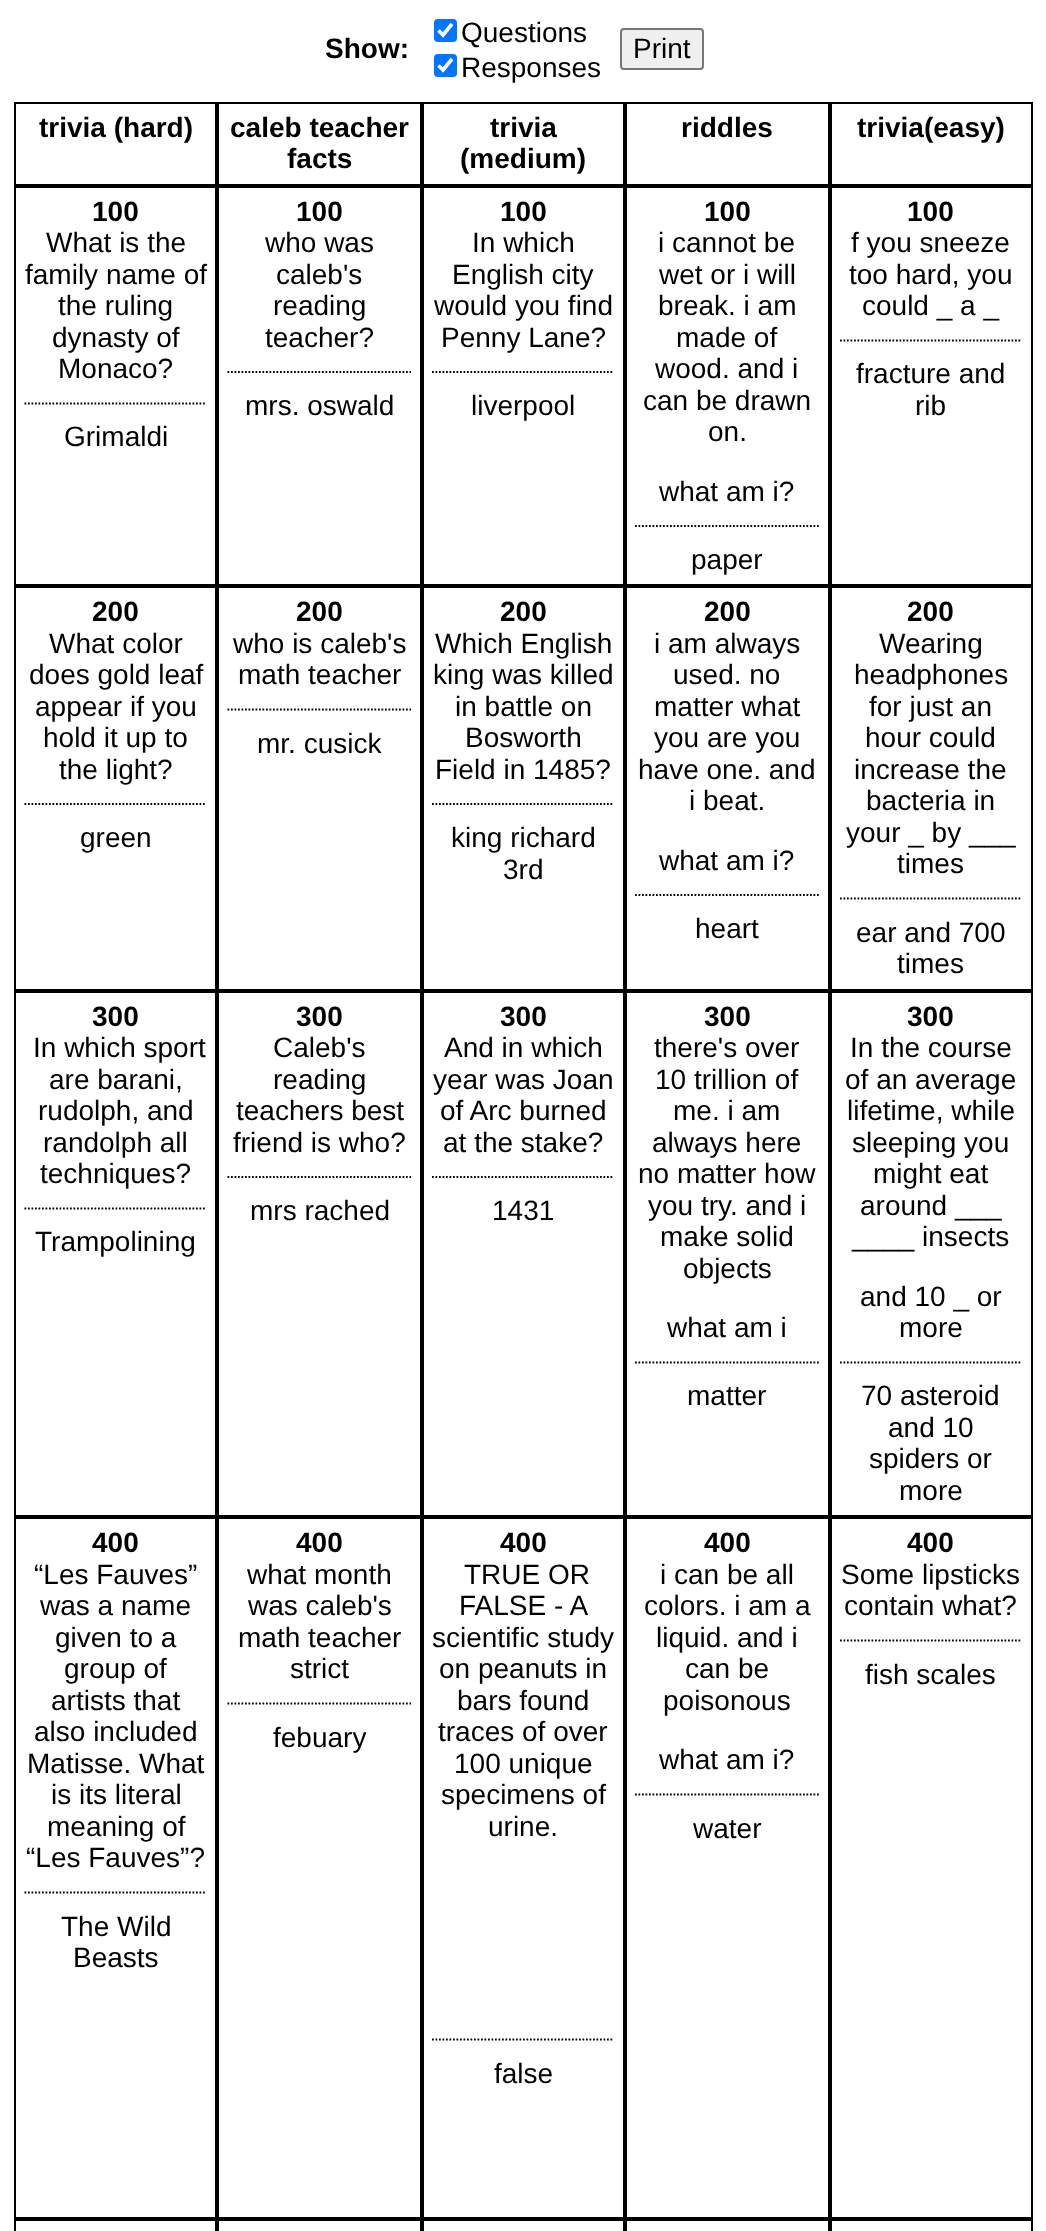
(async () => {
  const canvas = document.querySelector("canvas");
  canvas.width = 1046;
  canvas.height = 2231;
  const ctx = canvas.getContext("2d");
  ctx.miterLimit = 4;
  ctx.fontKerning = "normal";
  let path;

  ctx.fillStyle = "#ffffff";
  ctx.fillRect(0, 0, 1046, 2231);
  ctx.fillStyle = "#0075ff";
  ctx.beginPath();
  ctx.roundRect(434, 19, 23, 23, 4);
  ctx.fill();
  path = new Path2D("M438.5 30.5L443 35L452 24");
  ctx.strokeStyle = "#ffffff";
  ctx.lineWidth = 3.6;
  ctx.stroke(path);
  ctx.beginPath();
  ctx.roundRect(434, 54, 23, 23, 4);
  ctx.fill();
  path = new Path2D("M438.5 65.5L443 70L452 59");
  ctx.stroke(path);
  ctx.fillStyle = "#efefef";
  ctx.beginPath();
  ctx.roundRect(621, 29, 82, 40, 3);
  ctx.fill();
  ctx.strokeStyle = "#767676";
  ctx.lineWidth = 2;
  ctx.stroke();
  ctx.strokeStyle = "#000000";
  ctx.strokeRect(15, 103, 201, 82);
  ctx.strokeRect(218, 103, 203, 82);
  ctx.strokeRect(423, 103, 201, 82);
  ctx.strokeRect(626, 103, 203, 82);
  ctx.strokeRect(831, 103, 201, 82);
  ctx.strokeRect(15, 187, 201, 398);
  path = new Path2D("M24.5 403.5H206.5");
  ctx.lineWidth = 1.8;
  ctx.setLineDash([1.75, 1.75]);
  ctx.stroke(path);
  ctx.lineWidth = 2;
  ctx.setLineDash([]);
  ctx.strokeRect(218, 187, 203, 398);
  path = new Path2D("M227.5 372H411");
  ctx.lineWidth = 1.8;
  ctx.setLineDash([1.75, 1.75]);
  ctx.stroke(path);
  ctx.lineWidth = 2;
  ctx.setLineDash([]);
  ctx.strokeRect(423, 187, 201, 398);
  path = new Path2D("M432 372H614");
  ctx.lineWidth = 1.8;
  ctx.setLineDash([1.75, 1.75]);
  ctx.stroke(path);
  ctx.lineWidth = 2;
  ctx.setLineDash([]);
  ctx.strokeRect(626, 187, 203, 398);
  path = new Path2D("M635 526H819");
  ctx.lineWidth = 1.8;
  ctx.setLineDash([1.75, 1.75]);
  ctx.stroke(path);
  ctx.lineWidth = 2;
  ctx.setLineDash([]);
  ctx.strokeRect(831, 187, 201, 398);
  path = new Path2D("M840 340.5H1022");
  ctx.lineWidth = 1.8;
  ctx.setLineDash([1.75, 1.75]);
  ctx.stroke(path);
  ctx.lineWidth = 2;
  ctx.setLineDash([]);
  ctx.strokeRect(15, 587, 201, 403);
  path = new Path2D("M24.5 804H206.5");
  ctx.lineWidth = 1.8;
  ctx.setLineDash([1.75, 1.75]);
  ctx.stroke(path);
  ctx.lineWidth = 2;
  ctx.setLineDash([]);
  ctx.strokeRect(218, 587, 203, 403);
  path = new Path2D("M227.5 709.5H411");
  ctx.lineWidth = 1.8;
  ctx.setLineDash([1.75, 1.75]);
  ctx.stroke(path);
  ctx.lineWidth = 2;
  ctx.setLineDash([]);
  ctx.strokeRect(423, 587, 201, 403);
  path = new Path2D("M432 804H614");
  ctx.lineWidth = 1.8;
  ctx.setLineDash([1.75, 1.75]);
  ctx.stroke(path);
  ctx.lineWidth = 2;
  ctx.setLineDash([]);
  ctx.strokeRect(626, 587, 203, 403);
  path = new Path2D("M635 895H819");
  ctx.lineWidth = 1.8;
  ctx.setLineDash([1.75, 1.75]);
  ctx.stroke(path);
  ctx.lineWidth = 2;
  ctx.setLineDash([]);
  ctx.strokeRect(831, 587, 201, 403);
  path = new Path2D("M840 898.5H1022");
  ctx.lineWidth = 1.8;
  ctx.setLineDash([1.75, 1.75]);
  ctx.stroke(path);
  ctx.lineWidth = 2;
  ctx.setLineDash([]);
  ctx.strokeRect(15, 992, 201, 524);
  path = new Path2D("M24.5 1208.5H206.5");
  ctx.lineWidth = 1.8;
  ctx.setLineDash([1.75, 1.75]);
  ctx.stroke(path);
  ctx.lineWidth = 2;
  ctx.setLineDash([]);
  ctx.strokeRect(218, 992, 203, 524);
  path = new Path2D("M227.5 1177H411");
  ctx.lineWidth = 1.8;
  ctx.setLineDash([1.75, 1.75]);
  ctx.stroke(path);
  ctx.lineWidth = 2;
  ctx.setLineDash([]);
  ctx.strokeRect(423, 992, 201, 524);
  path = new Path2D("M432 1177H614");
  ctx.lineWidth = 1.8;
  ctx.setLineDash([1.75, 1.75]);
  ctx.stroke(path);
  ctx.lineWidth = 2;
  ctx.setLineDash([]);
  ctx.strokeRect(626, 992, 203, 524);
  path = new Path2D("M635 1362.5H819");
  ctx.lineWidth = 1.8;
  ctx.setLineDash([1.75, 1.75]);
  ctx.stroke(path);
  ctx.lineWidth = 2;
  ctx.setLineDash([]);
  ctx.strokeRect(831, 992, 201, 524);
  path = new Path2D("M840 1362.5H1022");
  ctx.lineWidth = 1.8;
  ctx.setLineDash([1.75, 1.75]);
  ctx.stroke(path);
  ctx.lineWidth = 2;
  ctx.setLineDash([]);
  ctx.strokeRect(15, 1518, 201, 700);
  path = new Path2D("M24.5 1892.5H206.5");
  ctx.lineWidth = 1.8;
  ctx.setLineDash([1.75, 1.75]);
  ctx.stroke(path);
  ctx.lineWidth = 2;
  ctx.setLineDash([]);
  ctx.strokeRect(218, 1518, 203, 700);
  path = new Path2D("M227.5 1703.5H411");
  ctx.lineWidth = 1.8;
  ctx.setLineDash([1.75, 1.75]);
  ctx.stroke(path);
  ctx.lineWidth = 2;
  ctx.setLineDash([]);
  ctx.strokeRect(423, 1518, 201, 700);
  path = new Path2D("M432 2039.5H614");
  ctx.lineWidth = 1.8;
  ctx.setLineDash([1.75, 1.75]);
  ctx.stroke(path);
  ctx.lineWidth = 2;
  ctx.setLineDash([]);
  ctx.strokeRect(626, 1518, 203, 700);
  path = new Path2D("M635 1794.5H819");
  ctx.lineWidth = 1.8;
  ctx.setLineDash([1.75, 1.75]);
  ctx.stroke(path);
  ctx.lineWidth = 2;
  ctx.setLineDash([]);
  ctx.strokeRect(831, 1518, 201, 700);
  path = new Path2D("M840 1640.5H1022");
  ctx.lineWidth = 1.8;
  ctx.setLineDash([1.75, 1.75]);
  ctx.stroke(path);
  ctx.lineWidth = 2;
  ctx.setLineDash([]);
  ctx.strokeRect(15, 2220, 201, 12);
  ctx.strokeRect(218, 2220, 203, 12);
  ctx.strokeRect(423, 2220, 201, 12);
  ctx.strokeRect(626, 2220, 203, 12);
  ctx.strokeRect(831, 2220, 201, 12);
  ctx.font = "bold 28px Liberation Sans";
  ctx.fillStyle = "#000000";
  ctx.fillText("Show:", 325, 58);
  ctx.font = "28px Liberation Sans";
  for (const [text, x, y] of [
    ["Questions", 461, 42],
    ["Responses", 461, 77],
    ["Print", 633, 58],
  ]) {
    ctx.fillText(text, x, y);
  }
  ctx.font = "bold 28px Liberation Sans";
  for (const [text, x, y] of [
    ["trivia (hard)", 39, 137],
    ["caleb teacher", 230, 137],
    ["facts", 287, 168],
    ["trivia", 490, 137],
    ["(medium)", 460, 168],
    ["riddles", 681, 137],
    ["trivia(easy)", 857, 137],
    ["100", 92, 221],
  ]) {
    ctx.fillText(text, x, y);
  }
  ctx.font = "28px Liberation Sans";
  for (const [text, x, y] of [
    ["What is the", 46, 252],
    ["family name of", 25, 284],
    ["the ruling", 58, 315],
    ["dynasty of", 52, 347],
    ["Monaco?", 58, 378],
    ["Grimaldi", 64, 446],
  ]) {
    ctx.fillText(text, x, y);
  }
  ctx.font = "bold 28px Liberation Sans";
  ctx.fillText("100", 296, 221);
  ctx.font = "28px Liberation Sans";
  for (const [text, x, y] of [
    ["who was", 265, 252],
    ["caleb's", 276, 284],
    ["reading", 273, 315],
    ["teacher?", 265, 347],
    ["mrs. oswald", 245, 415],
  ]) {
    ctx.fillText(text, x, y);
  }
  ctx.font = "bold 28px Liberation Sans";
  ctx.fillText("100", 500, 221);
  ctx.font = "28px Liberation Sans";
  for (const [text, x, y] of [
    ["In which", 472, 252],
    ["English city", 452, 284],
    ["would you find", 434, 315],
    ["Penny Lane?", 441, 347],
    ["liverpool", 471, 415],
  ]) {
    ctx.fillText(text, x, y);
  }
  ctx.font = "bold 28px Liberation Sans";
  ctx.fillText("100", 704, 221);
  ctx.font = "28px Liberation Sans";
  for (const [text, x, y] of [
    ["i cannot be", 658, 252],
    ["wet or i will", 659, 284],
    ["break. i am", 658, 315],
    ["made of", 676, 347],
    ["wood. and i", 655, 378],
    ["can be drawn", 643, 410],
    ["on.", 708, 441],
    ["what am i?", 659, 501],
    ["paper", 691, 569],
  ]) {
    ctx.fillText(text, x, y);
  }
  ctx.font = "bold 28px Liberation Sans";
  ctx.fillText("100", 907, 221);
  ctx.font = "28px Liberation Sans";
  for (const [text, x, y] of [
    ["f you sneeze", 851, 252],
    ["too hard, you", 849, 284],
    ["could _ a _", 862, 315],
    ["fracture and", 856, 383],
    ["rib", 915, 415],
  ]) {
    ctx.fillText(text, x, y);
  }
  ctx.font = "bold 28px Liberation Sans";
  ctx.fillText("200", 92, 621);
  ctx.font = "28px Liberation Sans";
  for (const [text, x, y] of [
    ["What color", 49, 653],
    ["does gold leaf", 29, 684],
    ["appear if you", 35, 716],
    ["hold it up to", 43, 747],
    ["the light?", 59, 779],
    ["green", 80, 847],
  ]) {
    ctx.fillText(text, x, y);
  }
  ctx.font = "bold 28px Liberation Sans";
  ctx.fillText("200", 296, 621);
  ctx.font = "28px Liberation Sans";
  for (const [text, x, y] of [
    ["who is caleb's", 233, 653],
    ["math teacher", 238, 684],
    ["mr. cusick", 257, 753],
  ]) {
    ctx.fillText(text, x, y);
  }
  ctx.font = "bold 28px Liberation Sans";
  ctx.fillText("200", 500, 621);
  ctx.font = "28px Liberation Sans";
  for (const [text, x, y] of [
    ["Which English", 435, 653],
    ["king was killed", 433, 684],
    ["in battle on", 455, 716],
    ["Bosworth", 465, 747],
    ["Field in 1485?", 435, 779],
    ["king richard", 451, 847],
    ["3rd", 503, 879],
  ]) {
    ctx.fillText(text, x, y);
  }
  ctx.font = "bold 28px Liberation Sans";
  ctx.fillText("200", 704, 621);
  ctx.font = "28px Liberation Sans";
  for (const [text, x, y] of [
    ["i am always", 654, 653],
    ["used. no", 673, 684],
    ["matter what", 654, 716],
    ["you are you", 654, 747],
    ["have one. and", 638, 779],
    ["i beat.", 689, 810],
    ["what am i?", 659, 870],
    ["heart", 695, 938],
  ]) {
    ctx.fillText(text, x, y);
  }
  ctx.font = "bold 28px Liberation Sans";
  ctx.fillText("200", 907, 621);
  ctx.font = "28px Liberation Sans";
  for (const [text, x, y] of [
    ["Wearing", 879, 653],
    ["headphones", 854, 684],
    ["for just an", 869, 716],
    ["hour could", 865, 747],
    ["increase the", 854, 779],
    ["bacteria in", 866, 810],
    ["your _ by ___", 846, 842],
    ["times", 897, 873],
    ["ear and 700", 856, 942],
    ["times", 897, 973],
  ]) {
    ctx.fillText(text, x, y);
  }
  ctx.font = "bold 28px Liberation Sans";
  ctx.fillText("300", 92, 1026);
  ctx.font = "28px Liberation Sans";
  for (const [text, x, y] of [
    ["In which sport", 33, 1057],
    ["are barani,", 49, 1089],
    ["rudolph, and", 38, 1120],
    ["randolph all", 43, 1152],
    ["techniques?", 40, 1183],
    ["Trampolining", 35, 1251],
  ]) {
    ctx.fillText(text, x, y);
  }
  ctx.font = "bold 28px Liberation Sans";
  ctx.fillText("300", 296, 1026);
  ctx.font = "28px Liberation Sans";
  for (const [text, x, y] of [
    ["Caleb's", 273, 1057],
    ["reading", 273, 1089],
    ["teachers best", 236, 1120],
    ["friend is who?", 233, 1152],
    ["mrs rached", 250, 1220],
  ]) {
    ctx.fillText(text, x, y);
  }
  ctx.font = "bold 28px Liberation Sans";
  ctx.fillText("300", 500, 1026);
  ctx.font = "28px Liberation Sans";
  for (const [text, x, y] of [
    ["And in which", 444, 1057],
    ["year was Joan", 433, 1089],
    ["of Arc burned", 440, 1120],
    ["at the stake?", 443, 1152],
    ["1431", 492, 1220],
  ]) {
    ctx.fillText(text, x, y);
  }
  ctx.font = "bold 28px Liberation Sans";
  ctx.fillText("300", 704, 1026);
  ctx.font = "28px Liberation Sans";
  for (const [text, x, y] of [
    ["there's over", 654, 1057],
    ["10 trillion of", 655, 1089],
    ["me. i am", 673, 1120],
    ["always here", 652, 1152],
    ["no matter how", 638, 1183],
    ["you try. and i", 648, 1215],
    ["make solid", 660, 1246],
    ["objects", 683, 1278],
    ["what am i", 667, 1337],
    ["matter", 687, 1405],
  ]) {
    ctx.fillText(text, x, y);
  }
  ctx.font = "bold 28px Liberation Sans";
  ctx.fillText("300", 907, 1026);
  ctx.font = "28px Liberation Sans";
  for (const [text, x, y] of [
    ["In the course", 850, 1057],
    ["of an average", 845, 1089],
    ["lifetime, while", 847, 1120],
    ["sleeping you", 852, 1152],
    ["might eat", 873, 1183],
    ["around ___", 860, 1215],
    ["____ insects", 852, 1246],
    ["and 10 _ or", 860, 1306],
    ["more", 899, 1337],
    ["70 asteroid", 861, 1405],
    ["and 10", 888, 1437],
    ["spiders or", 869, 1468],
    ["more", 899, 1500],
  ]) {
    ctx.fillText(text, x, y);
  }
  ctx.font = "bold 28px Liberation Sans";
  ctx.fillText("400", 92, 1552);
  ctx.font = "28px Liberation Sans";
  for (const [text, x, y] of [
    ["“Les Fauves”", 34, 1584],
    ["was a name", 40, 1615],
    ["given to a", 55, 1647],
    ["group of", 64, 1678],
    ["artists that", 51, 1710],
    ["also included", 34, 1741],
    ["Matisse. What", 27, 1773],
    ["is its literal", 51, 1804],
    ["meaning of", 47, 1836],
    ["“Les Fauves”?", 26, 1867],
    ["The Wild", 61, 1936],
    ["Beasts", 73, 1967],
  ]) {
    ctx.fillText(text, x, y);
  }
  ctx.font = "bold 28px Liberation Sans";
  ctx.fillText("400", 296, 1552);
  ctx.font = "28px Liberation Sans";
  for (const [text, x, y] of [
    ["what month", 247, 1584],
    ["was caleb's", 248, 1615],
    ["math teacher", 238, 1647],
    ["strict", 290, 1678],
    ["febuary", 273, 1747],
  ]) {
    ctx.fillText(text, x, y);
  }
  ctx.font = "bold 28px Liberation Sans";
  ctx.fillText("400", 500, 1552);
  ctx.font = "28px Liberation Sans";
  for (const [text, x, y] of [
    ["TRUE OR", 464, 1584],
    ["FALSE - A", 459, 1615],
    ["scientific study", 432, 1647],
    ["on peanuts in", 439, 1678],
    ["bars found", 457, 1710],
    ["traces of over", 438, 1741],
    ["100 unique", 454, 1773],
    ["specimens of", 441, 1804],
    ["urine.", 488, 1836],
    ["false", 494, 2083],
  ]) {
    ctx.fillText(text, x, y);
  }
  ctx.font = "bold 28px Liberation Sans";
  ctx.fillText("400", 704, 1552);
  ctx.font = "28px Liberation Sans";
  for (const [text, x, y] of [
    ["i can be all", 660, 1584],
    ["colors. i am a", 644, 1615],
    ["liquid. and i", 656, 1647],
    ["can be", 685, 1678],
    ["poisonous", 663, 1710],
    ["what am i?", 659, 1769],
    ["water", 693, 1838],
  ]) {
    ctx.fillText(text, x, y);
  }
  ctx.font = "bold 28px Liberation Sans";
  ctx.fillText("400", 907, 1552);
  ctx.font = "28px Liberation Sans";
  for (const [text, x, y] of [
    ["Some lipsticks", 841, 1584],
    ["contain what?", 844, 1615],
    ["fish scales", 865, 1684],
  ]) {
    ctx.fillText(text, x, y);
  }
})();
